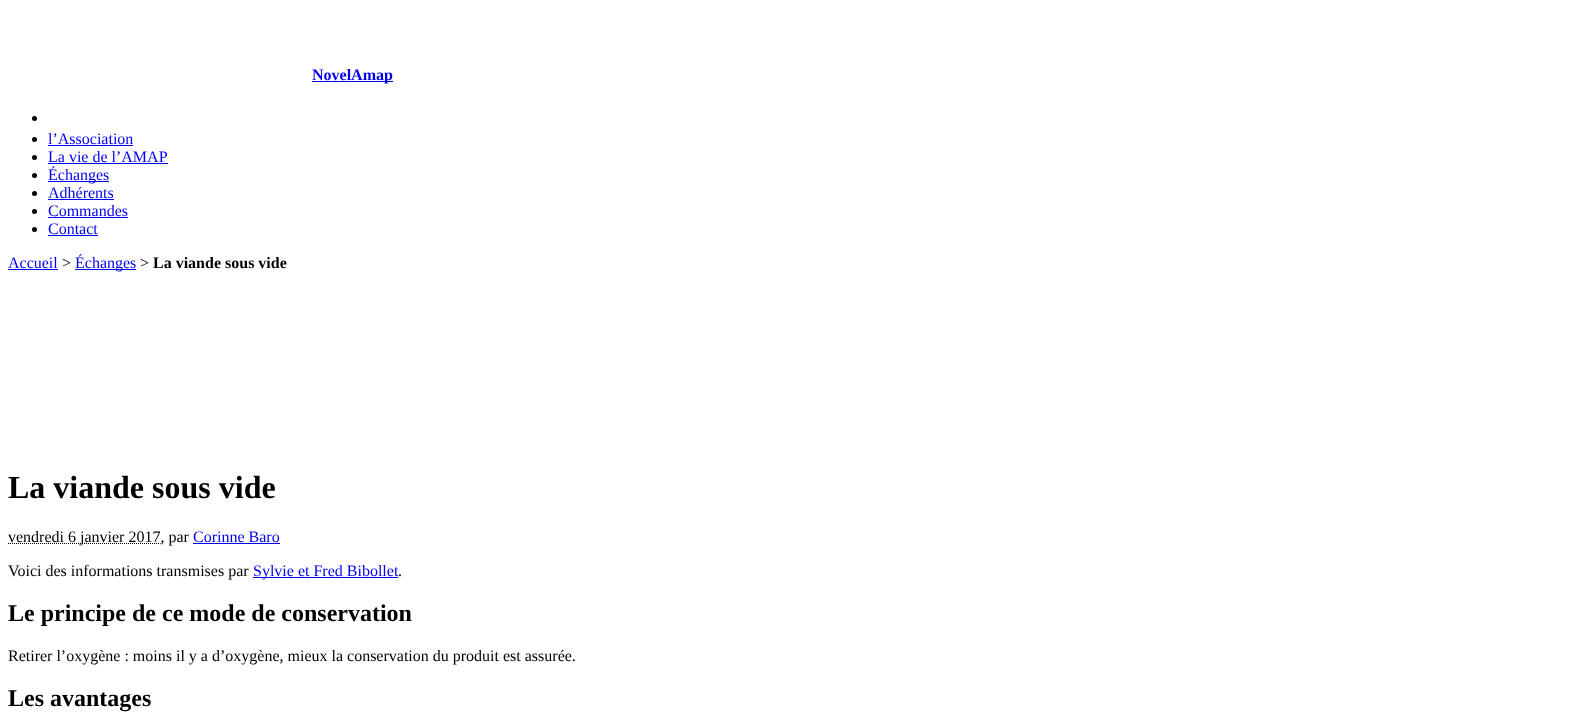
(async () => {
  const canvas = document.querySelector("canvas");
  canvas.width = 1587;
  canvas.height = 718;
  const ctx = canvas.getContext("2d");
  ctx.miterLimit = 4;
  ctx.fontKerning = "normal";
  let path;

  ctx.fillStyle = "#ffffff";
  ctx.fillRect(0, 0, 1587, 718);
  ctx.fillStyle = "#0000ee";
  ctx.fillRect(312, 81, 81, 1);
  ctx.fillStyle = "#000000";
  ctx.beginPath();
  ctx.arc(34.5, 118.5, 2.5, 0, Math.PI * 2);
  ctx.fill();
  ctx.beginPath();
  ctx.arc(34.5, 139.5, 2.5, 0, Math.PI * 2);
  ctx.fill();
  ctx.fillStyle = "#0000ee";
  ctx.fillRect(48, 145, 85, 1);
  ctx.fillStyle = "#000000";
  ctx.beginPath();
  ctx.arc(34.5, 157.5, 2.5, 0, Math.PI * 2);
  ctx.fill();
  ctx.fillStyle = "#0000ee";
  ctx.fillRect(48, 163, 120, 1);
  ctx.fillStyle = "#000000";
  ctx.beginPath();
  ctx.arc(34.5, 175.5, 2.5, 0, Math.PI * 2);
  ctx.fill();
  ctx.fillStyle = "#0000ee";
  ctx.fillRect(48, 181, 61, 1);
  ctx.fillStyle = "#000000";
  ctx.beginPath();
  ctx.arc(34.5, 193.5, 2.5, 0, Math.PI * 2);
  ctx.fill();
  ctx.fillStyle = "#0000ee";
  ctx.fillRect(48, 199, 66, 1);
  ctx.fillStyle = "#000000";
  ctx.beginPath();
  ctx.arc(34.5, 211.5, 2.5, 0, Math.PI * 2);
  ctx.fill();
  ctx.fillStyle = "#0000ee";
  ctx.fillRect(48, 217, 80, 1);
  ctx.fillStyle = "#000000";
  ctx.beginPath();
  ctx.arc(34.5, 229.5, 2.5, 0, Math.PI * 2);
  ctx.fill();
  for (const [x, y, w, h, color] of [
    [48, 235, 50, 1, "#0000ee"],
    [8, 269, 50, 1, "#0000ee"],
    [75, 269, 61, 1, "#0000ee"],
  ]) {
    ctx.fillStyle = color;
    ctx.fillRect(x, y, w, h);
  }
  path = new Path2D("M8 543.5H160.5");
  ctx.strokeStyle = "#000000";
  ctx.setLineDash([1, 1]);
  ctx.stroke(path);
  ctx.fillRect(193, 543, 87, 1);
  ctx.fillRect(253, 577, 145, 1);
  ctx.font = "bold 16px Liberation Serif";
  ctx.fillText("NovelAmap", 312, 80);
  ctx.font = "16px Liberation Serif";
  for (const [text, x, y] of [
    ["l’Association", 48, 144],
    ["La vie de l’AMAP", 48, 162],
    ["Échanges", 48, 180],
    ["Adhérents", 48, 198],
    ["Commandes", 48, 216],
    ["Contact", 48, 234],
    ["Accueil", 8, 268],
  ]) {
    ctx.fillText(text, x, y);
  }
  ctx.fillStyle = "#000000";
  ctx.fillText(">", 62, 268);
  ctx.fillStyle = "#0000ee";
  ctx.fillText("Échanges", 75, 268);
  ctx.fillStyle = "#000000";
  ctx.fillText(">", 140, 268);
  ctx.font = "bold 16px Liberation Serif";
  ctx.fillText("La viande sous vide", 153, 268);
  ctx.font = "bold 32px Liberation Serif";
  ctx.fillText("La viande sous vide", 8, 498);
  ctx.font = "16px Liberation Serif";
  ctx.fillText("vendredi 6 janvier 2017, par", 8, 542);
  ctx.fillStyle = "#0000ee";
  ctx.fillText("Corinne Baro", 193, 542);
  ctx.fillStyle = "#000000";
  ctx.fillText("Voici des informations transmises par", 8, 576);
  ctx.fillStyle = "#0000ee";
  ctx.fillText("Sylvie et Fred Bibollet", 253, 576);
  ctx.fillStyle = "#000000";
  ctx.fillText(".", 398, 576);
  ctx.font = "bold 24px Liberation Serif";
  ctx.fillText("Le principe de ce mode de conservation", 8, 621);
  ctx.font = "16px Liberation Serif";
  ctx.fillText("Retirer l’oxygène : moins il y a d’oxygène, mieux la conservation du produit est assurée.", 8, 661);
  ctx.font = "bold 24px Liberation Serif";
  ctx.fillText("Les avantages", 8, 706);
})();
